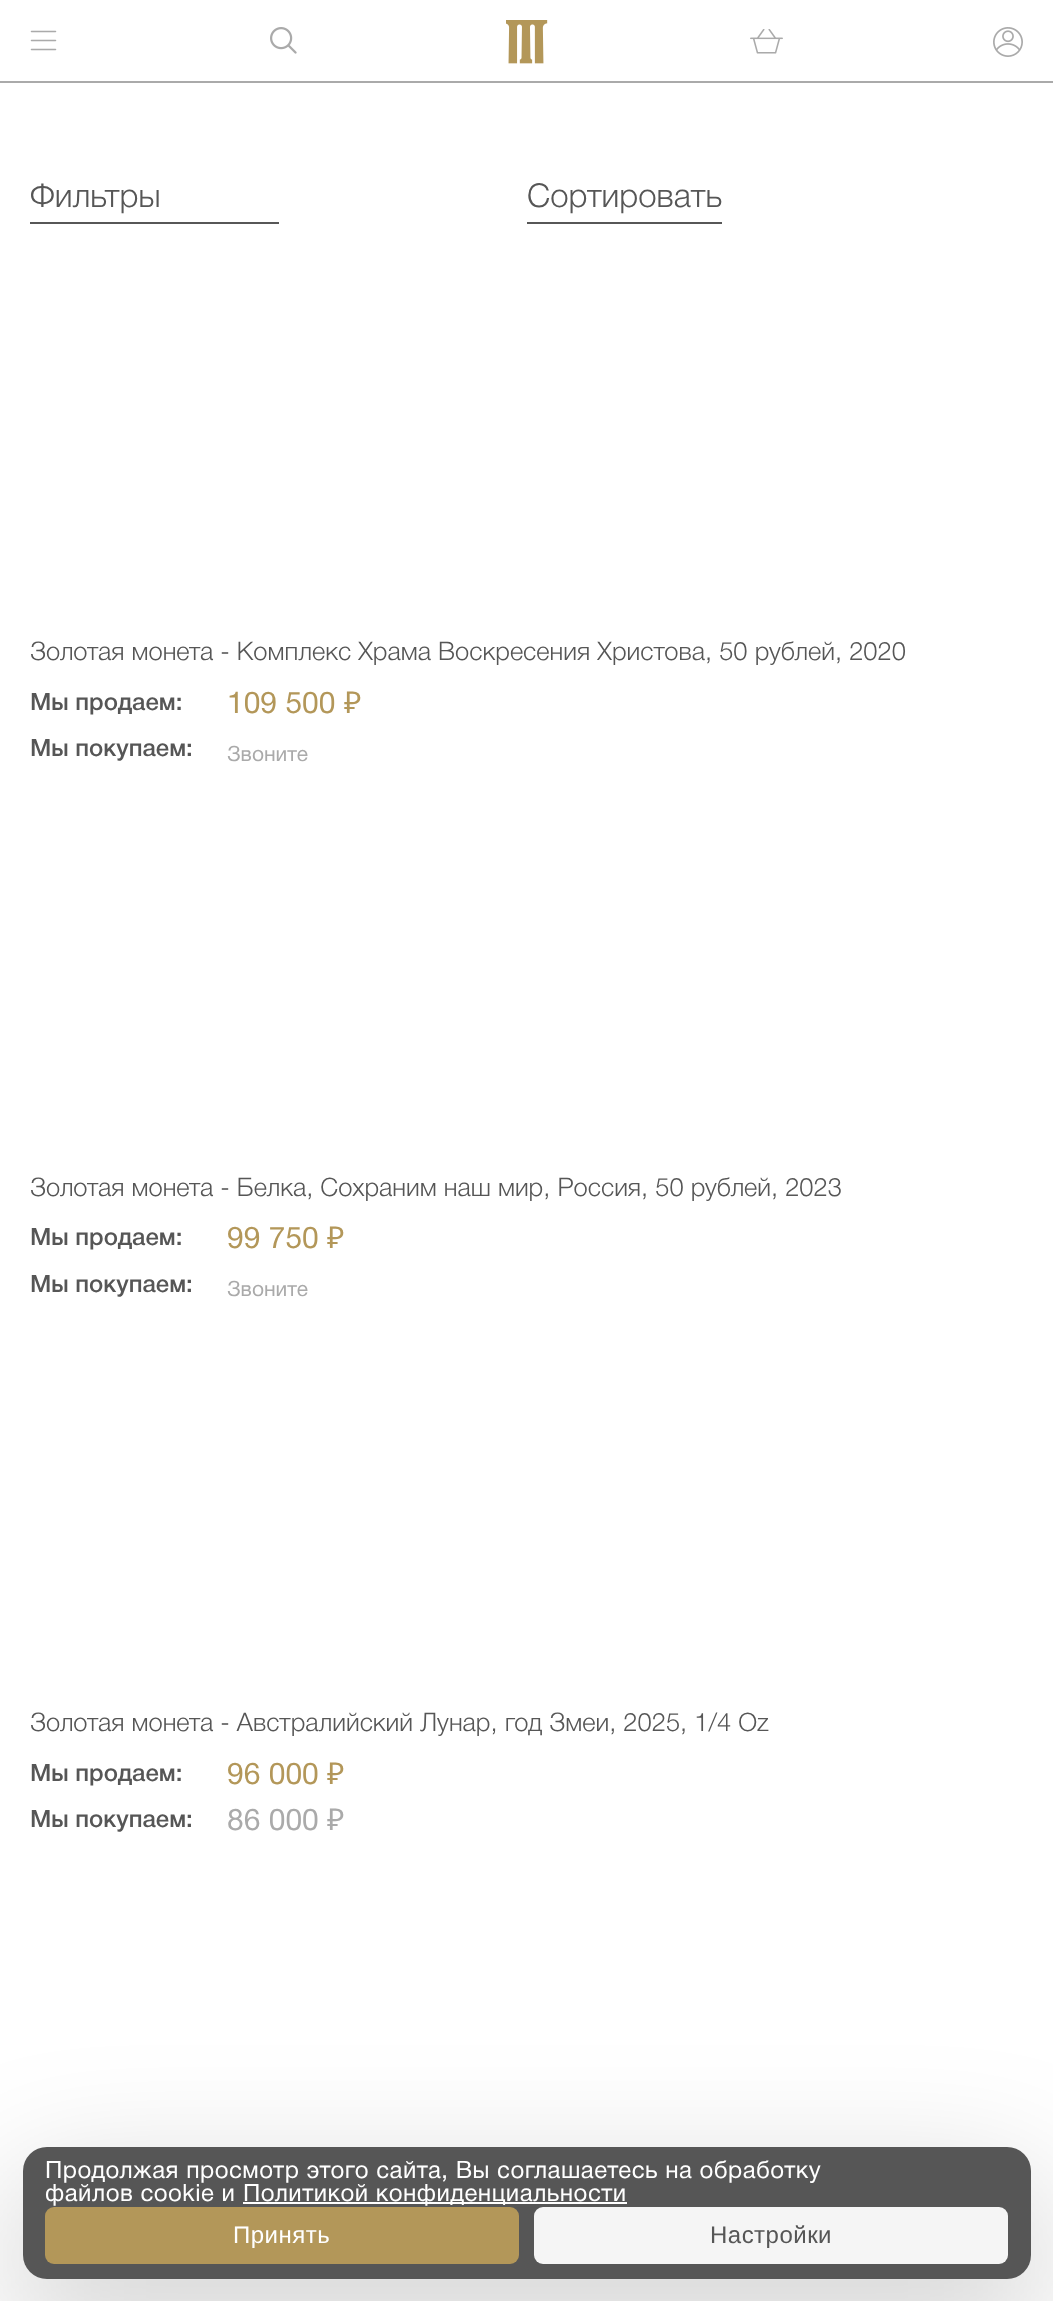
(async () => {
  const canvas = document.querySelector("canvas");
  canvas.width = 1053;
  canvas.height = 2301;
  const ctx = canvas.getContext("2d");
  ctx.miterLimit = 4;
  ctx.fontKerning = "normal";
  async function loadImage(src) {
    const img = new Image();
    img.src = src;
    await img.decode();
    return img;
  }

  ctx.fillStyle = "#ffffff";
  ctx.fillRect(0, 0, 1053, 2301);
  ctx.drawImage(await loadImage("img/1.png"), 506, 20, 42, 44);
  ctx.drawImage(await loadImage("img/2.png"), 30, 30, 27, 21);
  ctx.drawImage(await loadImage("img/3.png"), 270, 27, 27, 27);
  ctx.drawImage(await loadImage("img/4.png"), 750, 29, 33, 25);
  ctx.drawImage(await loadImage("img/5.png"), 993, 27, 30, 30);
  for (const [x, y, w, h, color] of [
    [0, 81, 1053, 2, "#aaaaaa"],
    [30, 222, 249, 2, "#575757"],
    [527, 222, 195, 2, "#575757"],
  ]) {
    ctx.fillStyle = color;
    ctx.fillRect(x, y, w, h);
  }
  ctx.fillStyle = "rgba(0, 0, 0, 0.17)";
  ctx.filter = "blur(66px)";
  ctx.beginPath();
  ctx.roundRect(11, 2180, 1032, 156, 36);
  ctx.fill();
  ctx.filter = "none";
  ctx.fillStyle = "#565656";
  ctx.beginPath();
  ctx.roundRect(23, 2147, 1008, 132, 24);
  ctx.fill();
  ctx.fillStyle = "#ffffff";
  ctx.fillRect(243, 2202, 384, 2);
  ctx.fillStyle = "#b39759";
  ctx.beginPath();
  ctx.roundRect(45, 2207, 474, 57, 9);
  ctx.fill();
  ctx.fillStyle = "#f5f5f5";
  ctx.beginPath();
  ctx.roundRect(534, 2207, 474, 57, 9);
  ctx.fill();
  ctx.font = "300 33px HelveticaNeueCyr";
  ctx.fillStyle = "#565656";
  ctx.fillText("Фильтры", 30, 207);
  ctx.fillText("Сортировать", 527, 207);
  ctx.font = "300 25.5px HelveticaNeueCyr";
  ctx.fillText("Золотая монета - Комплекс Храма Воскресения Христова, 50 рублей, 2020", 30, 660);
  ctx.font = "500 24px HelveticaNeueCyr";
  ctx.fillText("Мы продаем:", 30, 710);
  ctx.font = "30px HelveticaNeueCyr";
  ctx.fillStyle = "#b39759";
  ctx.fillText("109 500", 227, 713);
  ctx.font = "30px Noto Sans";
  ctx.fillText("₽", 344, 713);
  ctx.font = "500 24px HelveticaNeueCyr";
  ctx.fillStyle = "#565656";
  ctx.fillText("Мы покупаем:", 30, 756);
  ctx.font = "21px HelveticaNeueCyr";
  ctx.fillStyle = "#aaaaaa";
  ctx.fillText("Звоните", 227, 761);
  ctx.font = "300 25.5px HelveticaNeueCyr";
  ctx.fillStyle = "#565656";
  ctx.fillText("Золотая монета - Белка, Сохраним наш мир, Россия, 50 рублей, 2023", 30, 1196);
  ctx.font = "500 24px HelveticaNeueCyr";
  ctx.fillText("Мы продаем:", 30, 1245);
  ctx.font = "30px HelveticaNeueCyr";
  ctx.fillStyle = "#b39759";
  ctx.fillText("99 750", 227, 1248);
  ctx.font = "30px Noto Sans";
  ctx.fillText("₽", 327, 1248);
  ctx.font = "500 24px HelveticaNeueCyr";
  ctx.fillStyle = "#565656";
  ctx.fillText("Мы покупаем:", 30, 1292);
  ctx.font = "21px HelveticaNeueCyr";
  ctx.fillStyle = "#aaaaaa";
  ctx.fillText("Звоните", 227, 1296);
  ctx.font = "300 25.5px HelveticaNeueCyr";
  ctx.fillStyle = "#565656";
  ctx.fillText("Золотая монета - Австралийский Лунар, год Змеи, 2025, 1/4 Oz", 30, 1731);
  ctx.font = "500 24px HelveticaNeueCyr";
  ctx.fillText("Мы продаем:", 30, 1781);
  ctx.font = "30px HelveticaNeueCyr";
  ctx.fillStyle = "#b39759";
  ctx.fillText("96 000", 227, 1784);
  ctx.font = "30px Noto Sans";
  ctx.fillText("₽", 327, 1784);
  ctx.font = "500 24px HelveticaNeueCyr";
  ctx.fillStyle = "#565656";
  ctx.fillText("Мы покупаем:", 30, 1827);
  ctx.font = "30px HelveticaNeueCyr";
  ctx.fillStyle = "#aaaaaa";
  ctx.fillText("86 000", 227, 1830);
  ctx.font = "30px Noto Sans";
  ctx.fillText("₽", 327, 1830);
  ctx.letterSpacing = "0.48px";
  ctx.font = "24px HelveticaNeueCyr";
  ctx.fillStyle = "#ffffff";
  for (const [text, x, y] of [
    ["Продолжая просмотр этого сайта, Вы соглашаетесь на обработку", 45, 2178],
    ["файлов cookie и", 45, 2201],
    ["Политикой конфиденциальности", 243, 2201],
  ]) {
    ctx.fillText(text, x, y);
  }
  ctx.font = "24px Liberation Sans";
  ctx.fillText("Принять", 233, 2243);
  ctx.fillStyle = "#565656";
  ctx.fillText("Настройки", 710, 2243);
})();
